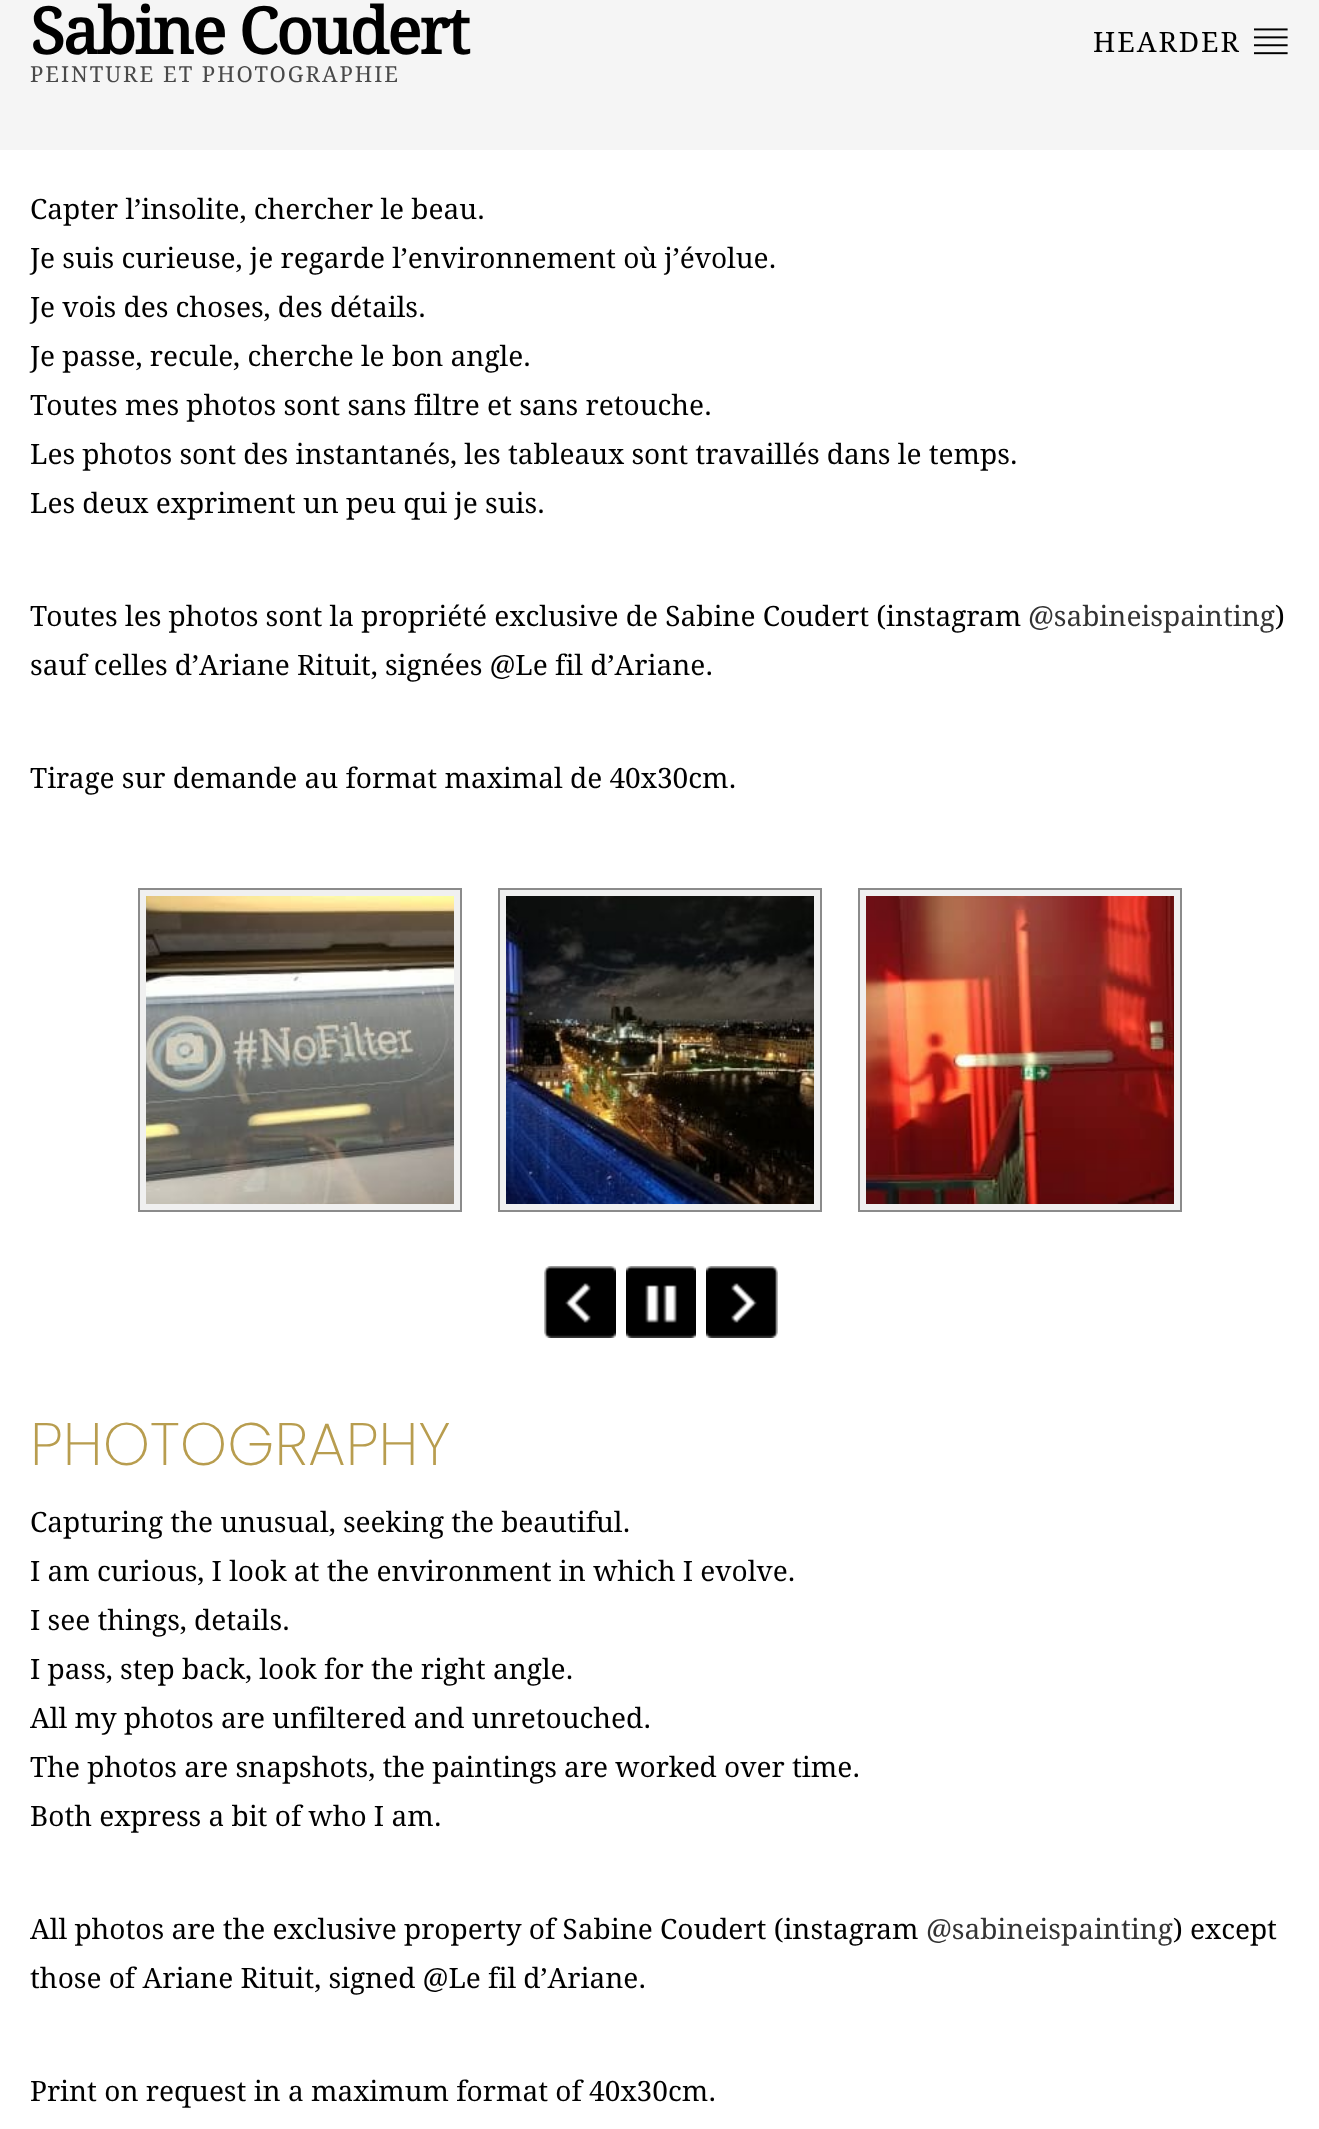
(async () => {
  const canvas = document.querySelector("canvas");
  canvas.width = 1319;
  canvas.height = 2129;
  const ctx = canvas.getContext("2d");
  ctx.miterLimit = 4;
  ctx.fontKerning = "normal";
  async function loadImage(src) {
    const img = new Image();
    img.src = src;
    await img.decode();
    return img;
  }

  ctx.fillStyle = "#ffffff";
  ctx.fillRect(0, 0, 1319, 2129);
  for (const [x, y, w, h, color] of [
    [0, 6, 1319, 2, "#ececec"],
    [0, 6, 1319, 2, "rgba(255, 255, 255, 0.98)"],
    [0, 0, 1319, 150, "rgba(0, 0, 0, 0.04)"],
  ]) {
    ctx.fillStyle = color;
    ctx.fillRect(x, y, w, h);
  }
  ctx.drawImage(await loadImage("img/1.png"), 1254, 28, 34, 27);
  ctx.fillStyle = "#f0f0f0";
  ctx.beginPath();
  ctx.rect(139, 889, 322, 322);
  ctx.fill();
  ctx.strokeStyle = "#8b8b8b";
  ctx.lineWidth = 2;
  ctx.stroke();
  ctx.drawImage(await loadImage("img/2.png"), 146, 896, 308, 308);
  ctx.beginPath();
  ctx.rect(499, 889, 322, 322);
  ctx.fill();
  ctx.stroke();
  ctx.drawImage(await loadImage("img/3.png"), 506, 896, 308, 308);
  ctx.beginPath();
  ctx.rect(859, 889, 322, 322);
  ctx.fill();
  ctx.stroke();
  ctx.drawImage(await loadImage("img/4.png"), 866, 896, 308, 308);
  ctx.drawImage(await loadImage("img/5.png"), 544, 1266, 72, 72);
  ctx.drawImage(await loadImage("img/6.png"), 626, 1266, 70, 72);
  ctx.drawImage(await loadImage("img/7.png"), 706, 1266, 72, 72);
  ctx.letterSpacing = "-2px";
  ctx.font = "bold 64px Droid Serif";
  ctx.fillStyle = "#000000";
  ctx.fillText("Sabine Coudert", 30, 54);
  ctx.letterSpacing = "2px";
  ctx.font = "22px Droid Serif";
  ctx.fillStyle = "#494949";
  ctx.fillText("PEINTURE ET PHOTOGRAPHIE", 30, 82);
  ctx.font = "28px Droid Serif";
  ctx.fillStyle = "#000000";
  ctx.fillText("HEARDER", 1093, 52);
  ctx.letterSpacing = "0px";
  for (const [text, x, y] of [
    ["Capter l’insolite, chercher le beau.", 30, 219],
    ["Je suis curieuse, je regarde l’environnement où j’évolue.", 30, 268],
    ["Je vois des choses, des détails.", 30, 317],
    ["Je passe, recule, cherche le bon angle.", 30, 366],
    ["Toutes mes photos sont sans filtre et sans retouche.", 30, 415],
    ["Les photos sont des instantanés, les tableaux sont travaillés dans le temps.", 30, 464],
    ["Les deux expriment un peu qui je suis.", 30, 513],
    ["Toutes les photos sont la propriété exclusive de Sabine Coudert (instagram", 30, 626],
  ]) {
    ctx.fillText(text, x, y);
  }
  ctx.fillStyle = "#333333";
  ctx.fillText("@sabineispainting", 1028, 626);
  ctx.fillStyle = "#000000";
  for (const [text, x, y] of [
    [")", 1275, 626],
    ["sauf celles d’Ariane Rituit, signées @Le fil d’Ariane.", 30, 675],
    ["Tirage sur demande au format maximal de 40x30cm.", 30, 788],
  ]) {
    ctx.fillText(text, x, y);
  }
  ctx.font = "200 60px Poppins";
  ctx.fillStyle = "#b89d4f";
  ctx.fillText("PHOTOGRAPHY", 30, 1465);
  ctx.font = "28px Droid Serif";
  ctx.fillStyle = "#000000";
  for (const [text, x, y] of [
    ["Capturing the unusual, seeking the beautiful.", 30, 1532],
    ["I am curious, I look at the environment in which I evolve.", 30, 1581],
    ["I see things, details.", 30, 1630],
    ["I pass, step back, look for the right angle.", 30, 1679],
    ["All my photos are unfiltered and unretouched.", 30, 1728],
    ["The photos are snapshots, the paintings are worked over time.", 30, 1777],
    ["Both express a bit of who I am.", 30, 1826],
    ["All photos are the exclusive property of Sabine Coudert (instagram", 30, 1939],
  ]) {
    ctx.fillText(text, x, y);
  }
  ctx.fillStyle = "#333333";
  ctx.fillText("@sabineispainting", 926, 1939);
  ctx.fillStyle = "#000000";
  for (const [text, x, y] of [
    [") except", 1173, 1939],
    ["those of Ariane Rituit, signed @Le fil d’Ariane.", 30, 1988],
    ["Print on request in a maximum format of 40x30cm.", 30, 2101],
  ]) {
    ctx.fillText(text, x, y);
  }
})();
